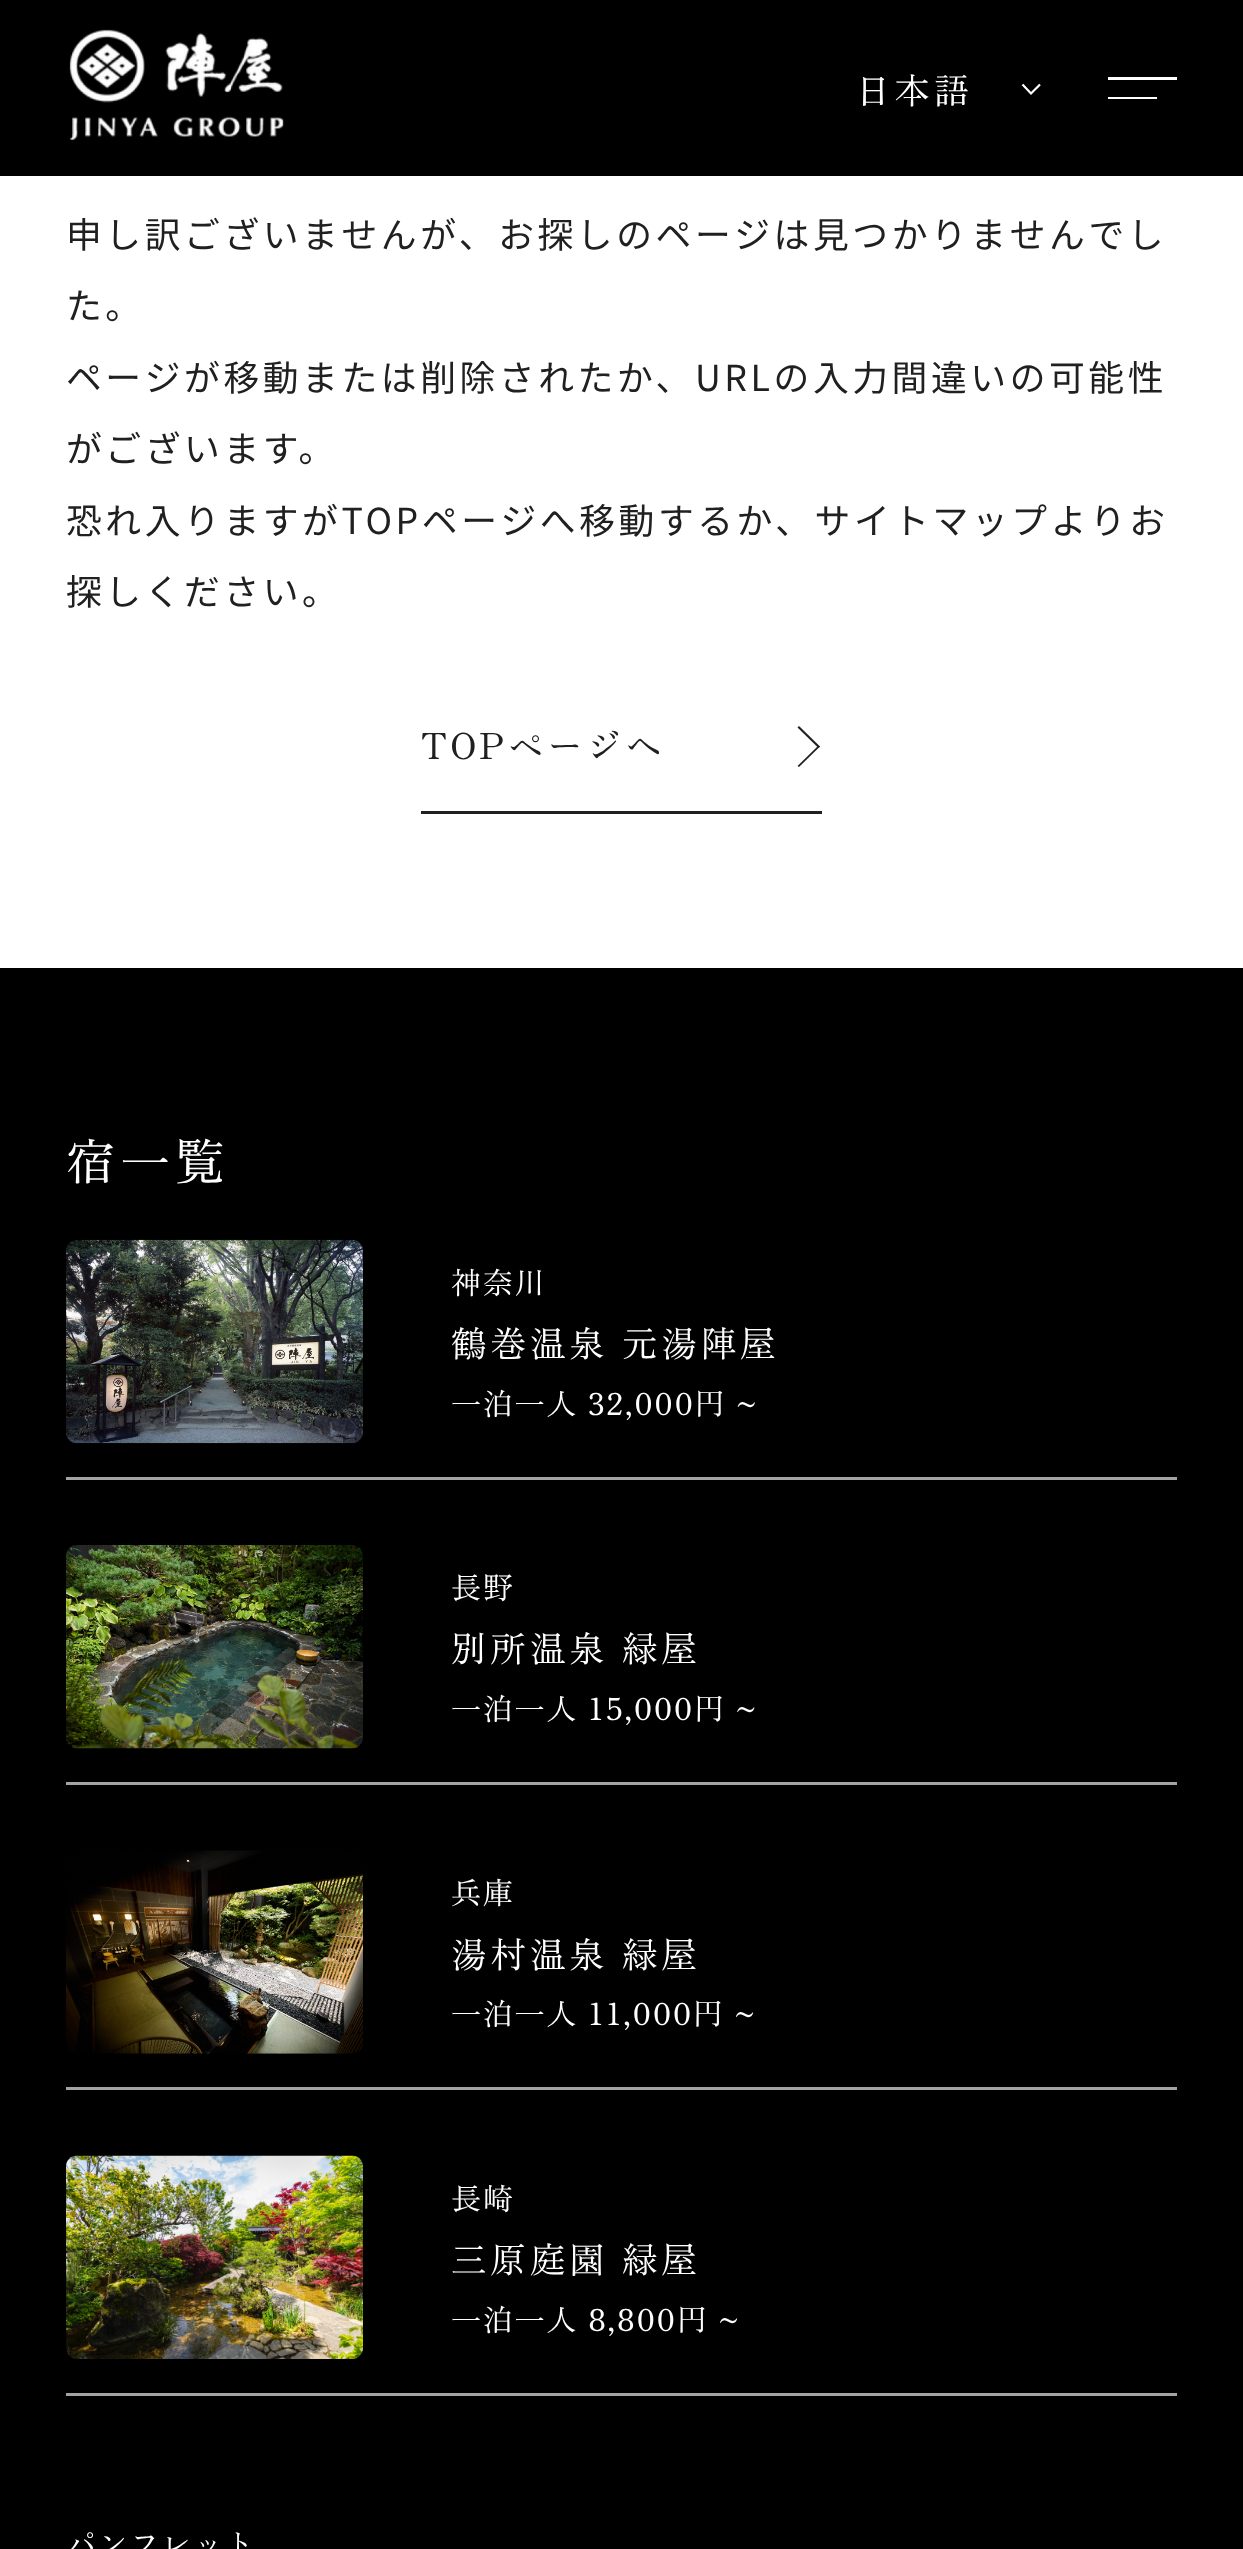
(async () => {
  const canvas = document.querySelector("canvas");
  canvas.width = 1243;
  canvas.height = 2549;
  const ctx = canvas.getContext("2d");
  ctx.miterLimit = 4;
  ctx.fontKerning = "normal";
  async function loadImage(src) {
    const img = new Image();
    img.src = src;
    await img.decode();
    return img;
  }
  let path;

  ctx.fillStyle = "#ffffff";
  ctx.fillRect(0, 0, 1243, 2549);
  ctx.fillStyle = "#000000";
  ctx.fillRect(0, 0, 1243, 176);
  ctx.drawImage(await loadImage("img/1.png"), 69, 29, 215, 111);
  path = new Path2D("M1040 84.5L1031 93.5L1022.5 84.5");
  ctx.strokeStyle = "#ffffff";
  ctx.lineWidth = 2.2;
  ctx.stroke(path);
  ctx.fillStyle = "#ffffff";
  ctx.fillRect(1108, 77, 69, 3);
  ctx.fillRect(1108, 97, 49, 2);
  ctx.fillStyle = "#202020";
  path = new Path2D("M799 767L797.5 766L818.5 745.5L820 746.5Z");
  ctx.fill(path);
  path = new Path2D("M797.5 727.5L799 726L820 746.5L818.5 748Z");
  ctx.fill(path);
  for (const [x, y, w, h, color] of [
    [421, 811, 401, 3, "#202020"],
    [0, 968, 1243, 1581, "#000000"],
    [66, 1477, 1111, 3, "#a3a3a3"],
  ]) {
    ctx.fillStyle = color;
    ctx.fillRect(x, y, w, h);
  }
  ctx.drawImage(await loadImage("img/2.png"), 66, 1239, 297, 205);
  ctx.fillRect(66, 1782, 1111, 3);
  ctx.drawImage(await loadImage("img/3.png"), 66, 1545, 297, 204);
  ctx.fillRect(66, 2087, 1111, 3);
  ctx.drawImage(await loadImage("img/4.png"), 66, 1850, 297, 204);
  ctx.fillRect(66, 2393, 1111, 3);
  ctx.drawImage(await loadImage("img/5.png"), 66, 2155, 297, 204);
  ctx.letterSpacing = "3.6px";
  ctx.font = "35.75px Zen Old Mincho";
  ctx.fillStyle = "#ffffff";
  ctx.fillText("日本語", 855, 104);
  ctx.font = "35.75px Noto Sans JP";
  ctx.fillStyle = "#202020";
  for (const [text, x, y] of [
    ["申し訳ございませんが、お探しのページは見つかりませんでし", 66, 248],
    ["た。", 66, 319],
    ["ページが移動または削除されたか、URLの入力間違いの可能性", 66, 391],
    ["がございます。", 66, 462],
    ["恐れ入りますがTOPページへ移動するか、サイトマップよりお", 66, 534],
    ["探しください。", 66, 605],
  ]) {
    ctx.fillText(text, x, y);
  }
  ctx.font = "35.75px Zen Old Mincho";
  ctx.fillText("TOPページへ", 421, 759);
  ctx.letterSpacing = "5px";
  ctx.font = "49.5px Zen Old Mincho";
  ctx.fillStyle = "#ffffff";
  ctx.fillText("宿一覧", 66, 1180);
  ctx.letterSpacing = "1.5px";
  ctx.font = "30.25px Zen Old Mincho";
  ctx.fillText("神奈川", 451, 1294);
  ctx.letterSpacing = "3.6px";
  ctx.font = "35.75px Zen Old Mincho";
  ctx.fillText("鶴巻温泉 元湯陣屋", 451, 1357);
  ctx.letterSpacing = "1.5px";
  ctx.font = "30.25px Zen Old Mincho";
  ctx.fillText("一泊一人 32,000円 ~", 451, 1415);
  ctx.fillText("長野", 451, 1599);
  ctx.letterSpacing = "3.6px";
  ctx.font = "35.75px Zen Old Mincho";
  ctx.fillText("別所温泉 緑屋", 451, 1662);
  ctx.letterSpacing = "1.5px";
  ctx.font = "30.25px Zen Old Mincho";
  ctx.fillText("一泊一人 15,000円 ~", 451, 1720);
  ctx.fillText("兵庫", 451, 1904);
  ctx.letterSpacing = "3.6px";
  ctx.font = "35.75px Zen Old Mincho";
  ctx.fillText("湯村温泉 緑屋", 451, 1968);
  ctx.letterSpacing = "1.5px";
  ctx.font = "30.25px Zen Old Mincho";
  ctx.fillText("一泊一人 11,000円 ~", 451, 2025);
  ctx.fillText("長崎", 451, 2210);
  ctx.letterSpacing = "3.6px";
  ctx.font = "35.75px Zen Old Mincho";
  ctx.fillText("三原庭園 緑屋", 451, 2273);
  ctx.letterSpacing = "1.5px";
  ctx.font = "30.25px Zen Old Mincho";
  ctx.fillText("一泊一人 8,800円 ~", 451, 2331);
  ctx.fillText("パンフレット", 66, 2555);
})();
